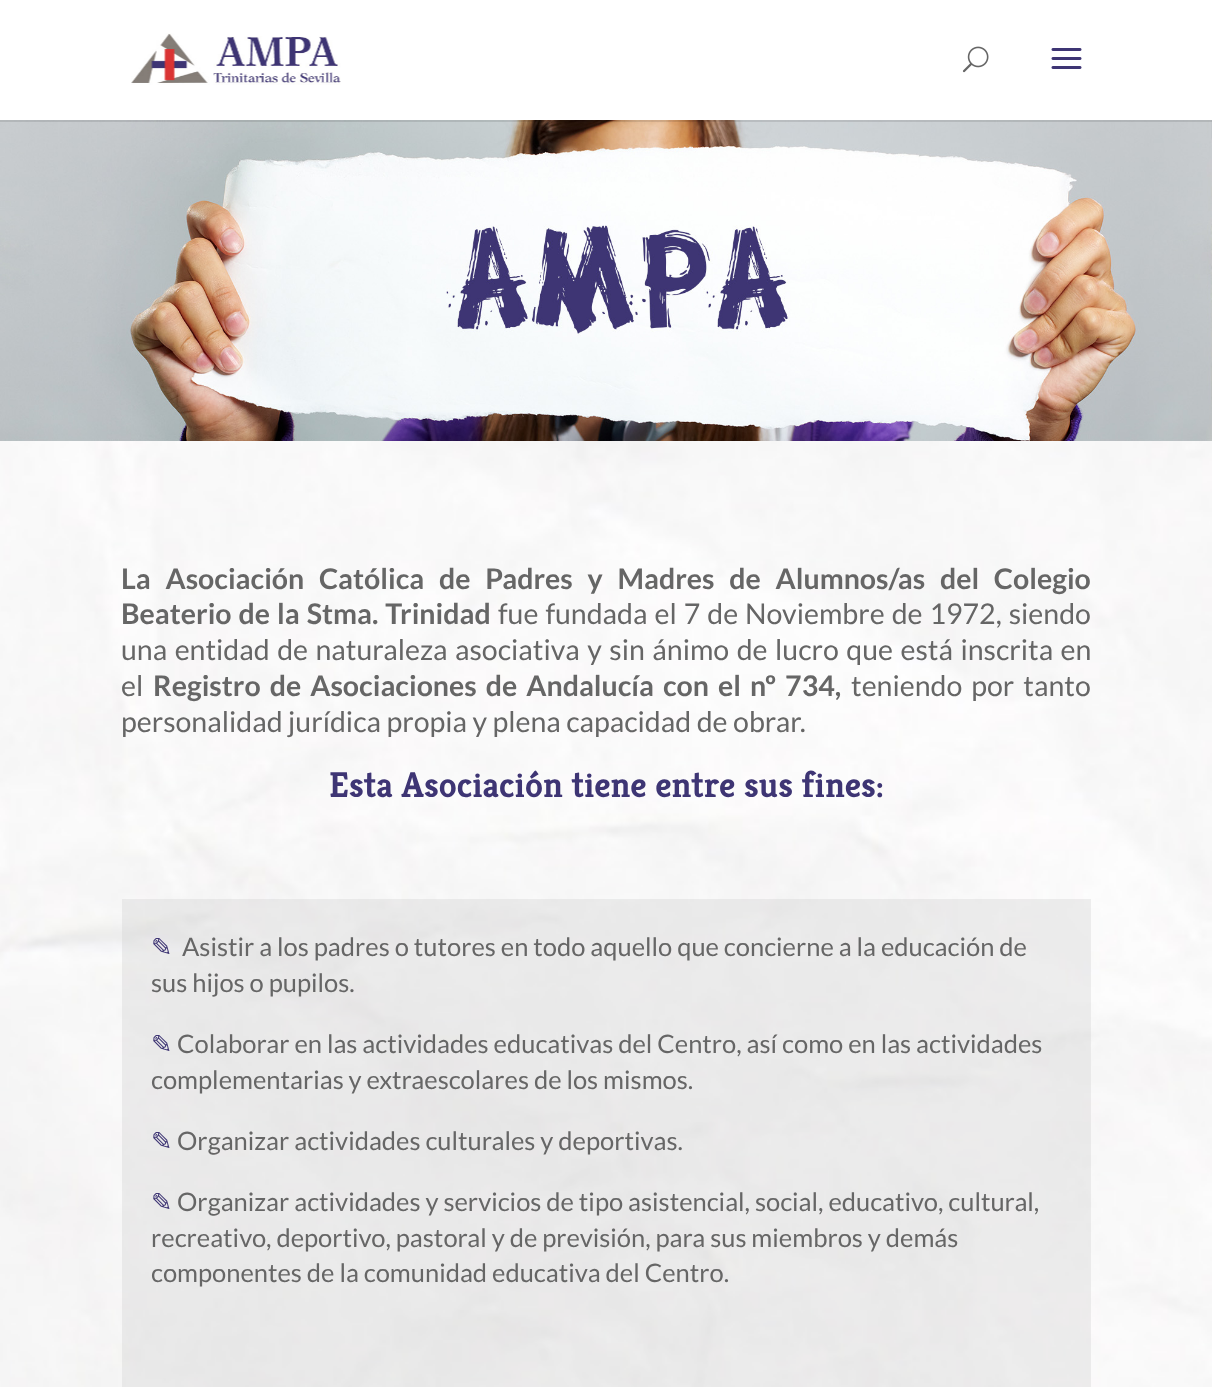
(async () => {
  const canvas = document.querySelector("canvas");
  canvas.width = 1212;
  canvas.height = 1387;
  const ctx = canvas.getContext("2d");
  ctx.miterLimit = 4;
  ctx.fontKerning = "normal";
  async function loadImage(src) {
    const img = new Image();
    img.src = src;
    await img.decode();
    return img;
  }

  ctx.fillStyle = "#ffffff";
  ctx.fillRect(0, 0, 1212, 1387);
  ctx.drawImage(await loadImage("img/4.png"), 0, 120, 1212, 321);
  ctx.fillStyle = "rgba(0, 0, 0, 0.1)";
  ctx.fillRect(0, 120, 1212, 2);
  ctx.drawImage(await loadImage("img/1.png"), 131, 33, 210, 52);
  ctx.drawImage(await loadImage("img/2.png"), 962, 46, 27, 27);
  ctx.drawImage(await loadImage("img/3.png"), 1051, 48, 31, 21);
  ctx.drawImage(await loadImage("img/5.png"), 0, 441, 1212, 946);
  ctx.fillStyle = "rgba(204, 204, 204, 0.32)";
  ctx.fillRect(122, 899, 969, 488);
  ctx.wordSpacing = "9.25px";
  ctx.font = "bold 28.5px Lato";
  ctx.fillStyle = "#666666";
  ctx.fillText("La Asociación Católica de Padres y Madres de Alumnos/as del Colegio", 121, 589);
  ctx.wordSpacing = "1.5px";
  ctx.fillText("Beaterio de la Stma. Trinidad", 121, 624);
  ctx.font = "28.5px Lato";
  ctx.fillText("fue fundada el 7 de Noviembre de 1972, siendo", 498, 624);
  ctx.wordSpacing = "2px";
  ctx.fillText("una entidad de naturaleza asociativa y sin ánimo de lucro que está inscrita en", 121, 660);
  ctx.wordSpacing = "0px";
  ctx.fillText("el", 121, 696);
  ctx.wordSpacing = "3.5px";
  ctx.font = "bold 28.5px Lato";
  ctx.fillText("Registro de Asociaciones de Andalucía con el nº 734,", 153, 696);
  ctx.font = "28.5px Lato";
  ctx.fillText("teniendo por tanto", 851, 696);
  ctx.wordSpacing = "0px";
  ctx.fillText("personalidad jurídica propia y plena capacidad de obrar.", 121, 732);
  ctx.font = "300 36px Kreon";
  ctx.fillStyle = "#3e3574";
  ctx.fillText("Esta Asociación tiene entre sus fines:", 329, 797);
  ctx.font = "25.5px DejaVu Sans";
  ctx.fillText("✎", 151, 956);
  ctx.font = "25.5px Lato";
  ctx.fillStyle = "#666666";
  ctx.fillText("Asistir a los padres o tutores en todo aquello que concierne a la educación de", 182, 956);
  ctx.fillText("sus hijos o pupilos.", 151, 992);
  ctx.font = "25.5px DejaVu Sans";
  ctx.fillStyle = "#3e3574";
  ctx.fillText("✎", 151, 1053);
  ctx.font = "25.5px Lato";
  ctx.fillStyle = "#666666";
  ctx.fillText("Colaborar en las actividades educativas del Centro, así como en las actividades", 177, 1053);
  ctx.fillText("complementarias y extraescolares de los mismos.", 151, 1089);
  ctx.font = "25.5px DejaVu Sans";
  ctx.fillStyle = "#3e3574";
  ctx.fillText("✎", 151, 1150);
  ctx.font = "25.5px Lato";
  ctx.fillStyle = "#666666";
  ctx.fillText("Organizar actividades culturales y deportivas.", 177, 1150);
  ctx.font = "25.5px DejaVu Sans";
  ctx.fillStyle = "#3e3574";
  ctx.fillText("✎", 151, 1211);
  ctx.font = "25.5px Lato";
  ctx.fillStyle = "#666666";
  for (const [text, x, y] of [
    ["Organizar actividades y servicios de tipo asistencial, social, educativo, cultural,", 177, 1211],
    ["recreativo, deportivo, pastoral y de previsión, para sus miembros y demás", 151, 1247],
    ["componentes de la comunidad educativa del Centro.", 151, 1282],
  ]) {
    ctx.fillText(text, x, y);
  }
})();
